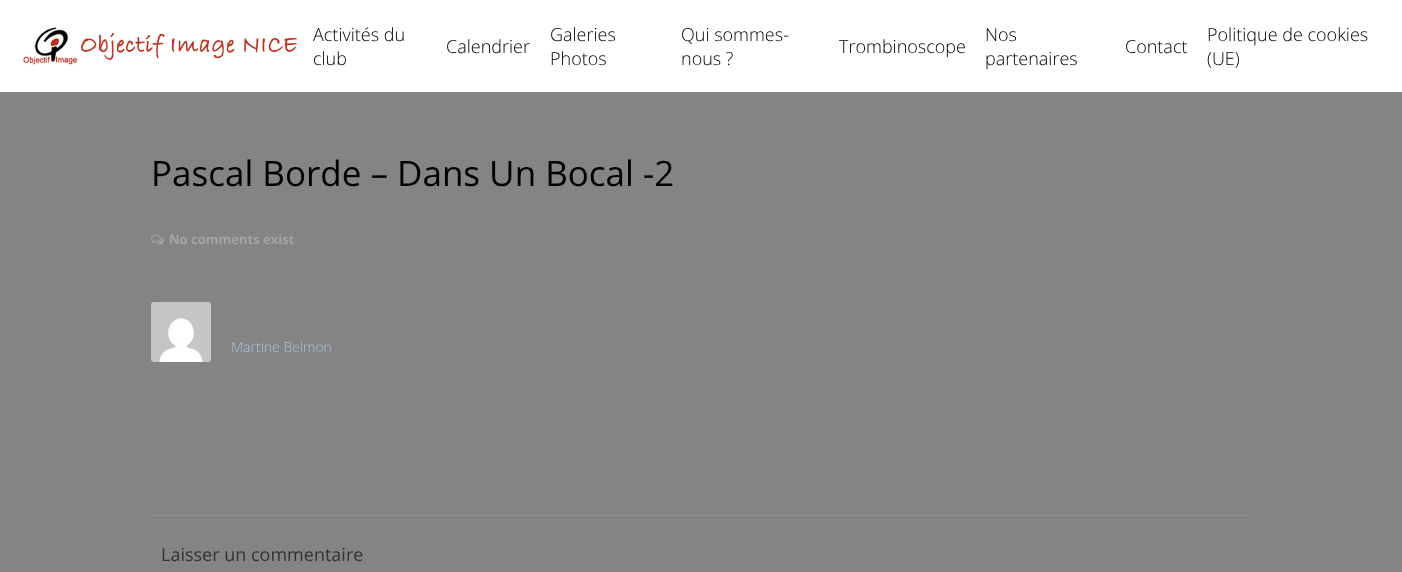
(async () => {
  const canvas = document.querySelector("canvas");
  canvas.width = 1402;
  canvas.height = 572;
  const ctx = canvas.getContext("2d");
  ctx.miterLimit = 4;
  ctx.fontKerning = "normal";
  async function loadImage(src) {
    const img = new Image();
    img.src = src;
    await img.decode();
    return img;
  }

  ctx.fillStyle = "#848484";
  ctx.fillRect(0, 0, 1402, 572);
  ctx.fillStyle = "#ffffff";
  ctx.fillRect(0, 0, 1402, 92);
  ctx.drawImage(await loadImage("img/1.png"), 23, 27, 274, 39);
  ctx.drawImage(await loadImage("img/2.png"), 151, 234, 13, 11);
  ctx.drawImage(await loadImage("img/3.png"), 151, 302, 60, 60);
  ctx.fillStyle = "#928f8f";
  ctx.fillRect(151, 515, 1100, 1);
  ctx.font = "300 18px Open Sans";
  ctx.fillStyle = "#000000";
  for (const [text, x, y] of [
    ["Activités du", 313, 41],
    ["club", 313, 65],
    ["Calendrier", 446, 53],
    ["Galeries", 550, 41],
    ["Photos", 550, 65],
    ["Qui sommes-", 681, 41],
    ["nous ?", 681, 65],
    ["Trombinoscope", 839, 53],
    ["Nos", 985, 41],
    ["partenaires", 985, 65],
    ["Contact", 1125, 53],
    ["Politique de cookies", 1207, 41],
    ["(UE)", 1207, 65],
  ]) {
    ctx.fillText(text, x, y);
  }
  ctx.font = "35px Open Sans";
  ctx.fillText("Pascal Borde – Dans Un Bocal -2", 151, 186);
  ctx.font = "bold 13px Open Sans";
  ctx.fillStyle = "#a5a5a5";
  ctx.fillText("No comments exist", 169, 244);
  ctx.font = "300 14px Open Sans";
  ctx.fillStyle = "#a1c9db";
  ctx.fillText("Martine Belmon", 231, 352);
  ctx.font = "18px Open Sans";
  ctx.fillStyle = "#333333";
  ctx.fillText("Laisser un commentaire", 161, 561);
})();
